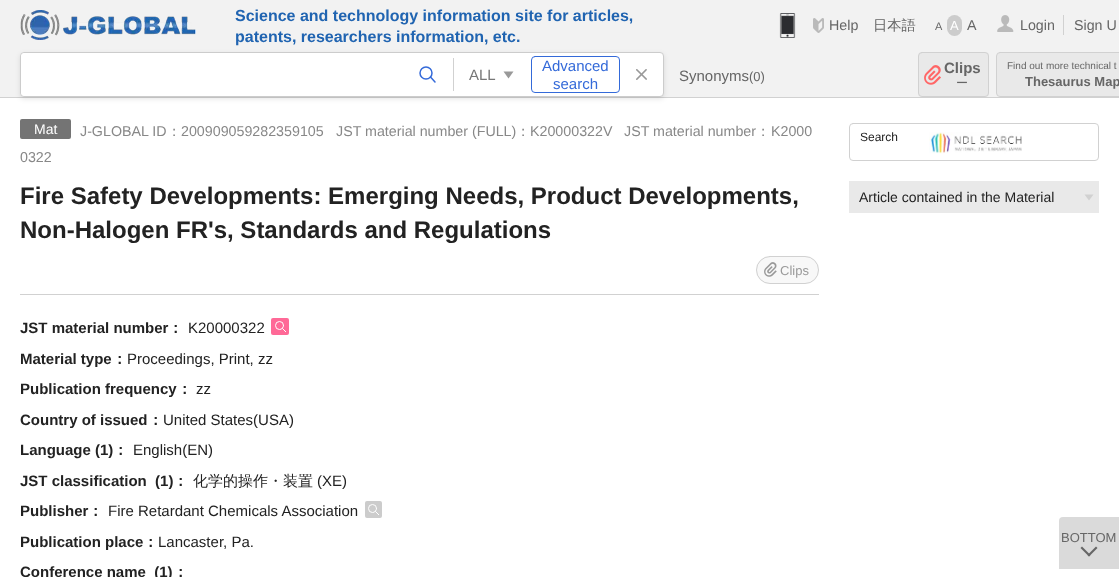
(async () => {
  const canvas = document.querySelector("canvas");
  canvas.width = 1119;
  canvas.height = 577;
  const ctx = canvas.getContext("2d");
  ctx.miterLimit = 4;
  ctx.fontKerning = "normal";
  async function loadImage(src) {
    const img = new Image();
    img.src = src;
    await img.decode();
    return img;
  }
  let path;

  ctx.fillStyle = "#ffffff";
  ctx.fillRect(0, 0, 1119, 577);
  ctx.fillStyle = "#f2f2f2";
  ctx.fillRect(0, 0, 1119, 97);
  ctx.drawImage(await loadImage("img/1.png"), 20, 10, 176, 30);
  ctx.drawImage(await loadImage("img/2.png"), 779, 13, 17, 25);
  ctx.drawImage(await loadImage("img/3.png"), 813, 18, 11, 15);
  ctx.fillStyle = "#cccccc";
  ctx.beginPath();
  ctx.roundRect(947, 15, 15, 21, 7.5);
  ctx.fill();
  ctx.drawImage(await loadImage("img/4.png"), 997, 15, 17, 17);
  ctx.fillStyle = "#d1d1d1";
  ctx.fillRect(1063, 15, 1, 20);
  ctx.fillRect(0, 97, 1119, 1);
  ctx.fillStyle = "rgba(0, 0, 0, 0.1)";
  ctx.filter = "blur(2.5px)";
  ctx.beginPath();
  ctx.roundRect(20, 54, 644, 45, 4);
  ctx.fill();
  ctx.filter = "none";
  ctx.fillStyle = "#ffffff";
  ctx.beginPath();
  ctx.roundRect(20.5, 52.5, 643, 44, 3.5);
  ctx.fill();
  ctx.strokeStyle = "#cccccc";
  ctx.stroke();
  ctx.save();
  ctx.beginPath();
  ctx.roundRect(21, 53, 642, 43, 3);
  ctx.clip();
  ctx.beginPath();
  ctx.roundRect(21, 53, 382, 43, 4);
  ctx.fill();
  ctx.restore();
  ctx.beginPath();
  ctx.arc(426, 73, 6, 0, Math.PI * 2);
  ctx.strokeStyle = "#346ad9";
  ctx.lineWidth = 1.5;
  ctx.stroke();
  path = new Path2D("M430.5 77L435 82");
  ctx.lineCap = "round";
  ctx.lineJoin = "round";
  ctx.stroke(path);
  ctx.fillStyle = "#999999";
  path = new Path2D("M513.5 71.5L508.5 78.5L503.5 71.5Z");
  ctx.fill(path);
  ctx.fillStyle = "#d1d1d1";
  ctx.fillRect(453, 58, 1, 33);
  ctx.beginPath();
  ctx.roundRect(531.5, 56.5, 88, 36, 3.5);
  ctx.lineWidth = 1;
  ctx.lineJoin = "miter";
  ctx.stroke();
  ctx.drawImage(await loadImage("img/5.png"), 636, 69, 11, 11);
  ctx.fillStyle = "#e9e9e9";
  ctx.beginPath();
  ctx.roundRect(918, 52, 71, 45, 4);
  ctx.fill();
  ctx.drawImage(await loadImage("img/6.png"), 924, 65, 17, 20);
  ctx.beginPath();
  ctx.roundRect(918.5, 52.5, 70, 44, 3.5);
  ctx.strokeStyle = "#d1d1d1";
  ctx.stroke();
  ctx.beginPath();
  ctx.roundRect(996.5, 52.5, 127, 44, 3.5);
  ctx.fill();
  ctx.stroke();
  ctx.fillStyle = "#d1d1d1";
  ctx.fillRect(20, 294, 799, 1);
  ctx.fillStyle = "#747474";
  ctx.beginPath();
  ctx.roundRect(20, 119, 51, 20, 2);
  ctx.fill();
  ctx.fillStyle = "#f8f8f8";
  ctx.beginPath();
  ctx.roundRect(756, 256, 63, 28, 14);
  ctx.fill();
  ctx.drawImage(await loadImage("img/7.png"), 764, 262, 13, 15);
  ctx.beginPath();
  ctx.roundRect(756.5, 256.5, 62, 27, 13.5);
  ctx.stroke();
  ctx.fillStyle = "#ff6997";
  ctx.beginPath();
  ctx.roundRect(271, 318, 18, 17, 2);
  ctx.fill();
  ctx.beginPath();
  ctx.arc(279.5, 325.5, 4, 0, Math.PI * 2);
  ctx.strokeStyle = "#ffffff";
  ctx.stroke();
  ctx.save();
  ctx.beginPath();
  ctx.rect(275, 321, 11, 11);
  ctx.clip();
  path = new Path2D("M282.5 328.5L286 332");
  ctx.lineJoin = "round";
  ctx.stroke(path);
  ctx.restore();
  ctx.fillStyle = "#cccccc";
  ctx.beginPath();
  ctx.roundRect(365, 501, 17, 17, 2);
  ctx.fill();
  ctx.beginPath();
  ctx.arc(372.5, 508.5, 4, 0, Math.PI * 2);
  ctx.stroke();
  ctx.save();
  ctx.beginPath();
  ctx.rect(368, 504, 11, 11);
  ctx.clip();
  path = new Path2D("M375.5 511.5L379 515");
  ctx.lineJoin = "round";
  ctx.stroke(path);
  ctx.restore();
  ctx.beginPath();
  ctx.roundRect(849.5, 123.5, 249, 37, 3.5);
  ctx.strokeStyle = "#d1d1d1";
  ctx.stroke();
  ctx.drawImage(await loadImage("img/8.png"), 929, 132, 93, 22);
  ctx.fillStyle = "#e9e9e9";
  ctx.fillRect(849, 181, 250, 32);
  ctx.fillStyle = "#d1d1d1";
  path = new Path2D("M1093.5 194.5L1089 200.5L1084.5 194.5Z");
  ctx.fill(path);
  ctx.fillStyle = "#dadada";
  ctx.beginPath();
  ctx.roundRect(1059, 517, 60, 52, [4, 0, 0, 0]);
  ctx.fill();
  ctx.fillStyle = "#666666";
  path = new Path2D("M1087.5 555L1096 546.5L1097.5 548L1089 556.5Z");
  ctx.fill(path);
  path = new Path2D("M1080.5 548L1082 546.5L1090.5 555L1089 556.5Z");
  ctx.fill(path);
  ctx.font = "bold 16px Liberation Sans";
  ctx.fillStyle = "#2064b1";
  ctx.fillText("Science and technology information site for articles,", 235, 21);
  ctx.fillText("patents, researchers information, etc.", 235, 42);
  ctx.font = "14.25px Liberation Sans";
  ctx.fillStyle = "#666666";
  ctx.fillText("Help", 829, 30);
  ctx.font = "500 14.25px WenQuanYi Zen Hei";
  ctx.fillText("日本語", 873, 30);
  ctx.font = "11px Liberation Sans";
  ctx.fillText("A", 935, 30);
  ctx.font = "13px Liberation Sans";
  ctx.fillStyle = "#ffffff";
  ctx.fillText("A", 950, 30);
  ctx.font = "14.25px Liberation Sans";
  ctx.fillStyle = "#666666";
  for (const [text, x, y] of [
    ["A", 967, 30],
    ["Login", 1020, 30],
    ["Sign U", 1074, 30],
  ]) {
    ctx.fillText(text, x, y);
  }
  ctx.font = "15px Liberation Sans";
  ctx.fillStyle = "#777777";
  ctx.fillText("ALL", 469, 80);
  ctx.fillStyle = "#346ad9";
  ctx.fillText("Advanced", 542, 71);
  ctx.fillText("search", 553, 89);
  ctx.fillStyle = "#666666";
  ctx.fillText("Synonyms", 679, 81);
  ctx.font = "13px Liberation Sans";
  ctx.fillText("(0)", 749, 81);
  ctx.font = "bold 15px Liberation Sans";
  ctx.fillText("Clips", 944, 73);
  ctx.font = "500 12px WenQuanYi Zen Hei";
  ctx.fillText("ー", 956, 87);
  ctx.font = "10px Liberation Sans";
  ctx.fillText("Find out more technical t", 1007, 69);
  ctx.font = "bold 13px Liberation Sans";
  ctx.fillText("Thesaurus Map", 1025, 86);
  ctx.font = "14px Liberation Sans";
  ctx.fillStyle = "#ffffff";
  ctx.fillText("Mat", 34, 134);
  ctx.font = "14.25px Liberation Sans";
  ctx.fillStyle = "#888888";
  ctx.fillText("J-GLOBAL ID", 80, 136);
  ctx.font = "500 14.25px WenQuanYi Zen Hei";
  ctx.fillText("：", 167, 136);
  ctx.font = "14.25px Liberation Sans";
  ctx.fillText("200909059282359105", 181, 136);
  ctx.fillText("JST material number (FULL)", 336, 136);
  ctx.font = "500 14.25px WenQuanYi Zen Hei";
  ctx.fillText("：", 516, 136);
  ctx.font = "14.25px Liberation Sans";
  ctx.fillText("K20000322V", 530, 136);
  ctx.fillText("JST material number", 624, 136);
  ctx.font = "500 14.25px WenQuanYi Zen Hei";
  ctx.fillText("：", 756, 136);
  ctx.font = "14.25px Liberation Sans";
  ctx.fillText("K2000", 771, 136);
  ctx.fillText("0322", 20, 162);
  ctx.font = "bold 24px Liberation Sans";
  ctx.fillStyle = "#222222";
  ctx.fillText("Fire Safety Developments: Emerging Needs, Product Developments,", 20, 204);
  ctx.fillText("Non-Halogen FR's, Standards and Regulations", 20, 238);
  ctx.font = "13px Liberation Sans";
  ctx.fillStyle = "#999999";
  ctx.fillText("Clips", 780, 275);
  ctx.font = "bold 15px Liberation Sans";
  ctx.fillStyle = "#222222";
  ctx.fillText("JST material number", 20, 333);
  ctx.font = "bold 15px WenQuanYi Zen Hei";
  ctx.fillText("：", 168, 333);
  ctx.font = "15px Liberation Sans";
  ctx.fillText("K20000322", 188, 333);
  ctx.font = "bold 15px Liberation Sans";
  ctx.fillText("Material type", 20, 364);
  ctx.font = "bold 15px WenQuanYi Zen Hei";
  ctx.fillText("：", 112, 364);
  ctx.font = "15px Liberation Sans";
  ctx.fillText("Proceedings, Print, zz", 127, 364);
  ctx.font = "bold 15px Liberation Sans";
  ctx.fillText("Publication frequency", 20, 394);
  ctx.font = "bold 15px WenQuanYi Zen Hei";
  ctx.fillText("：", 177, 394);
  ctx.font = "15px Liberation Sans";
  ctx.fillText("zz", 196, 394);
  ctx.font = "bold 15px Liberation Sans";
  ctx.fillText("Country of issued", 20, 425);
  ctx.font = "bold 15px WenQuanYi Zen Hei";
  ctx.fillText("：", 148, 425);
  ctx.font = "15px Liberation Sans";
  ctx.fillText("United States(USA)", 163, 425);
  ctx.font = "bold 15px Liberation Sans";
  ctx.fillText("Language (1)", 20, 455);
  ctx.font = "bold 15px WenQuanYi Zen Hei";
  ctx.fillText("：", 113, 455);
  ctx.font = "15px Liberation Sans";
  ctx.fillText("English(EN)", 133, 455);
  ctx.font = "bold 15px Liberation Sans";
  ctx.fillText("JST classification  (1)", 20, 486);
  ctx.font = "bold 15px WenQuanYi Zen Hei";
  ctx.fillText("：", 173, 486);
  ctx.font = "500 15px WenQuanYi Zen Hei";
  ctx.fillText("化学的操作・装置", 193, 486);
  ctx.font = "15px Liberation Sans";
  ctx.fillText("(XE)", 317, 486);
  ctx.font = "bold 15px Liberation Sans";
  ctx.fillText("Publisher", 20, 516);
  ctx.font = "bold 15px WenQuanYi Zen Hei";
  ctx.fillText("：", 88, 516);
  ctx.font = "15px Liberation Sans";
  ctx.fillText("Fire Retardant Chemicals Association", 108, 516);
  ctx.font = "bold 15px Liberation Sans";
  ctx.fillText("Publication place", 20, 547);
  ctx.font = "bold 15px WenQuanYi Zen Hei";
  ctx.fillText("：", 143, 547);
  ctx.font = "15px Liberation Sans";
  ctx.fillText("Lancaster, Pa.", 158, 547);
  ctx.font = "bold 15px Liberation Sans";
  ctx.fillText("Conference name  (1)", 20, 577);
  ctx.font = "bold 15px WenQuanYi Zen Hei";
  ctx.fillText("：", 173, 577);
  ctx.font = "12px Liberation Sans";
  ctx.fillText("Search", 860, 141);
  ctx.font = "14px Liberation Sans";
  ctx.fillText("Article contained in the Material", 859, 202);
  ctx.font = "13px Liberation Sans";
  ctx.fillStyle = "#666666";
  ctx.fillText("BOTTOM", 1061, 542);
})();
